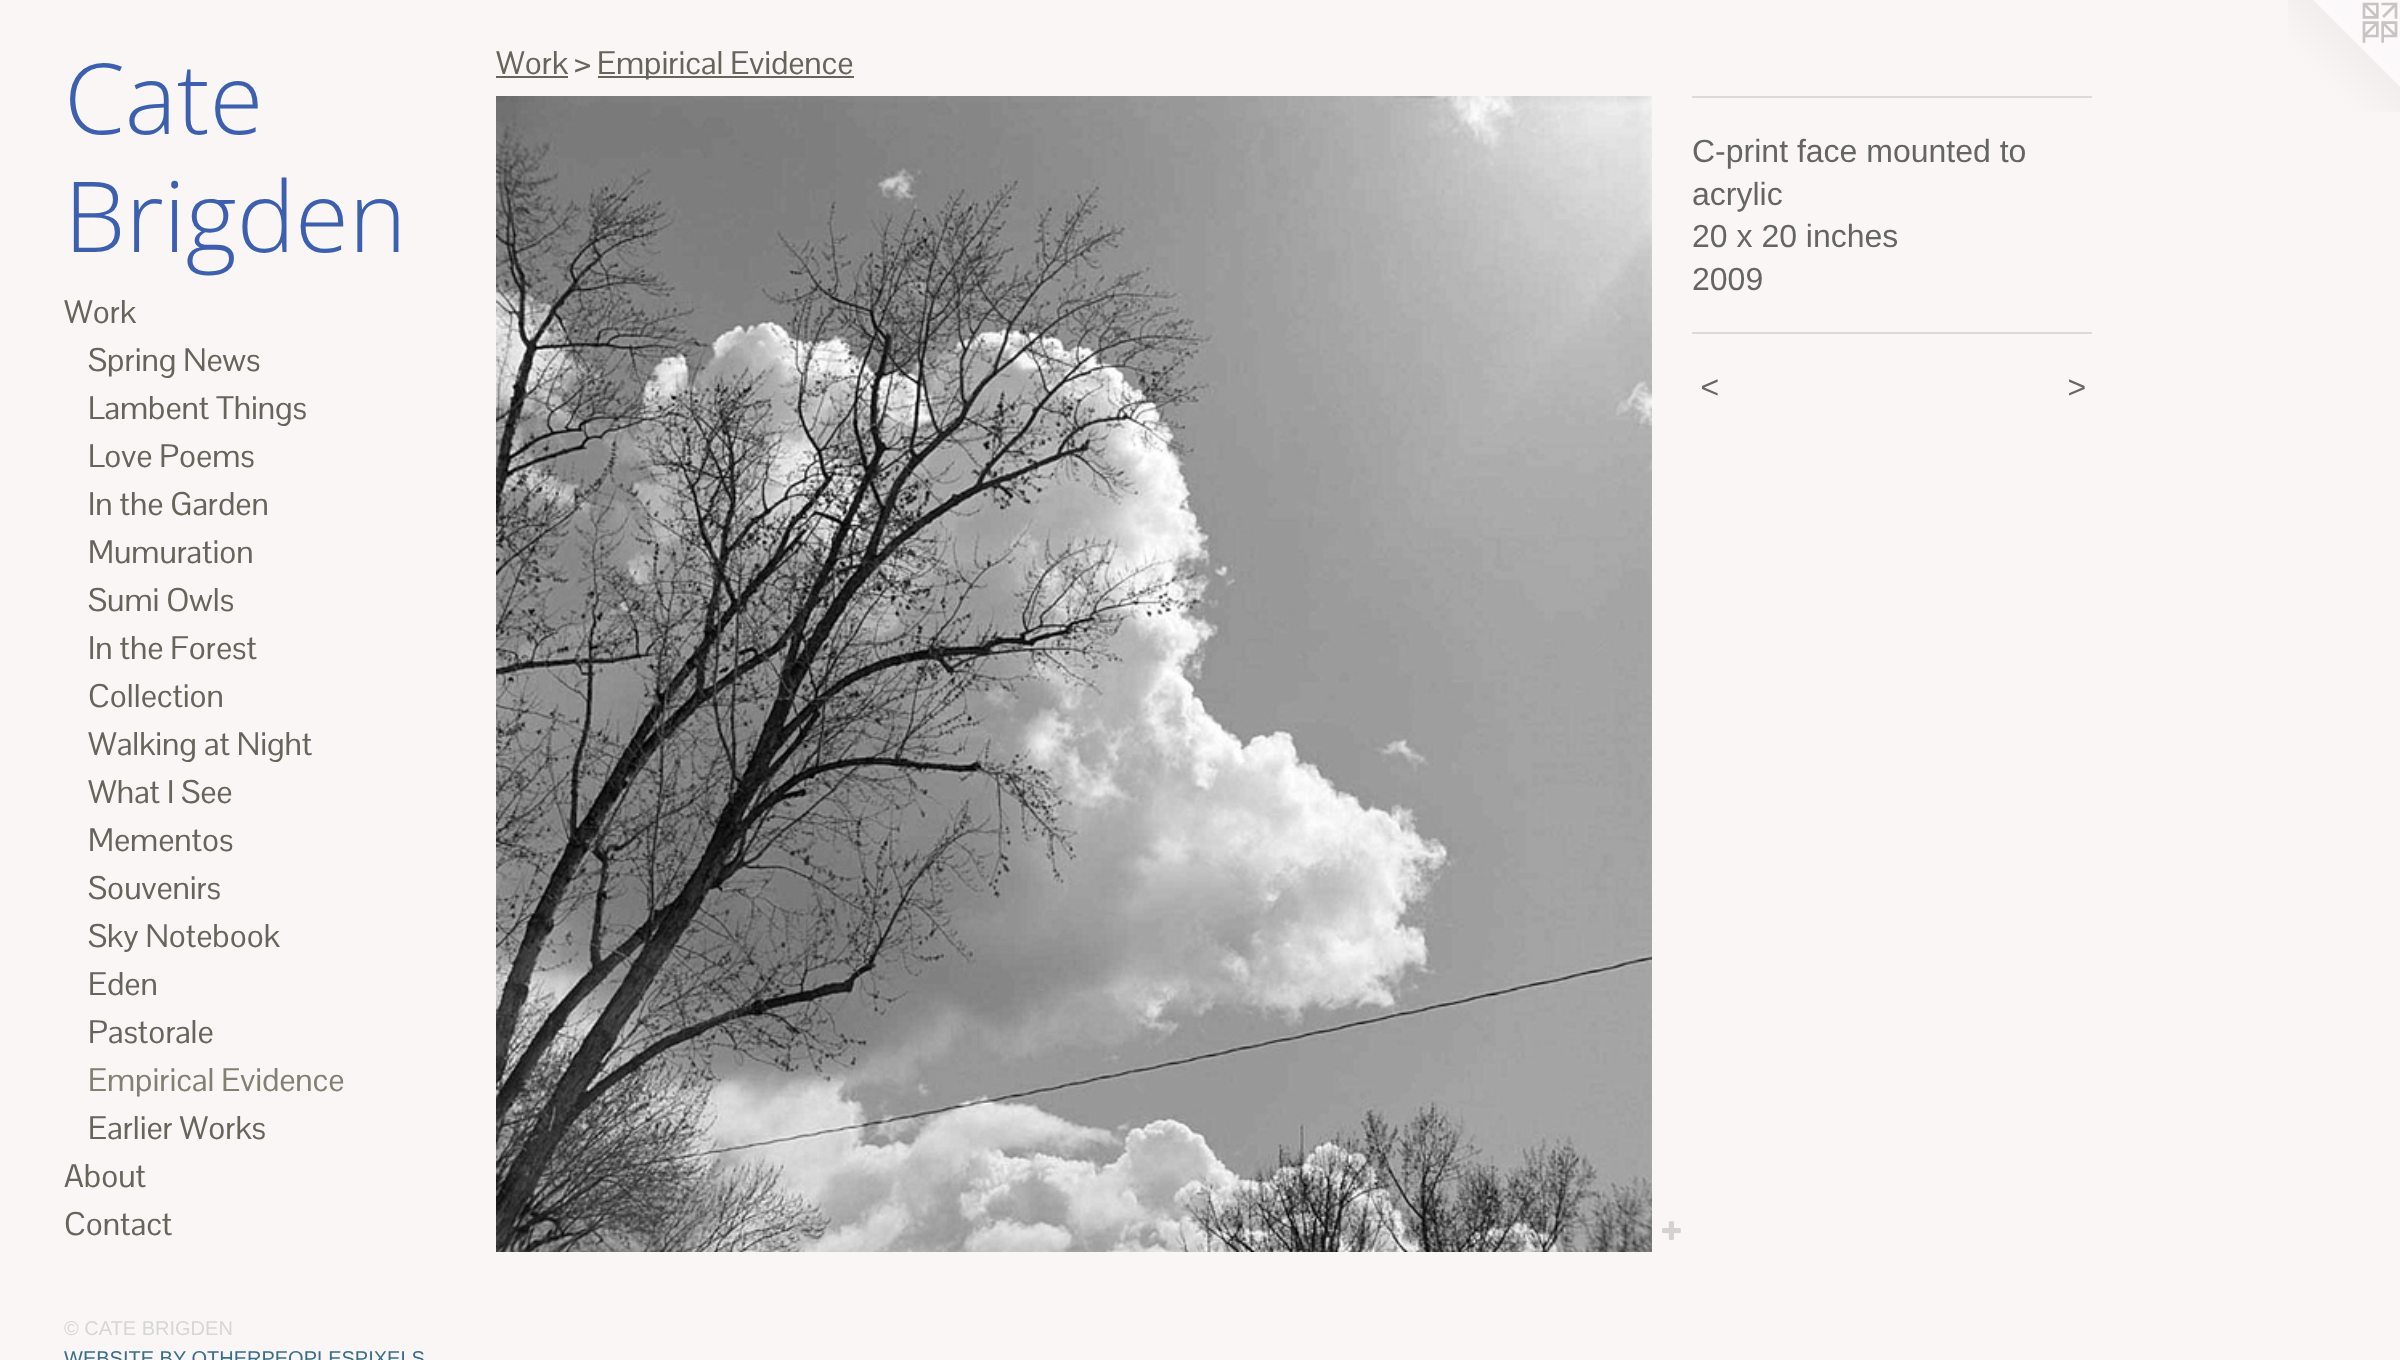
(async () => {
  const canvas = document.querySelector("canvas");
  canvas.width = 2400;
  canvas.height = 1360;
  const ctx = canvas.getContext("2d");
  ctx.miterLimit = 4;
  ctx.fontKerning = "normal";
  async function loadImage(src) {
    const img = new Image();
    img.src = src;
    await img.decode();
    return img;
  }

  ctx.fillStyle = "#faf6f6";
  ctx.fillRect(0, 0, 2400, 1360);
  ctx.fillStyle = "#67655b";
  ctx.fillRect(496, 76, 72, 2);
  ctx.fillRect(598, 76, 256, 2);
  ctx.drawImage(await loadImage("img/1.png"), 496, 96, 1156, 1156);
  ctx.drawImage(await loadImage("img/2.png"), 1662, 1221, 19, 19);
  ctx.fillStyle = "#dcd9d9";
  ctx.fillRect(1692, 96, 400, 2);
  ctx.fillRect(1692, 332, 400, 2);
  ctx.drawImage(await loadImage("img/3.png"), 2288, 0, 112, 112);
  ctx.font = "300 98px Open Sans";
  ctx.fillStyle = "#3c60af";
  ctx.fillText("Cate", 64, 134);
  ctx.fillText("Brigden", 64, 252);
  ctx.font = "32px Pontano Sans";
  ctx.fillStyle = "#67655b";
  for (const [text, x, y] of [
    ["Work", 64, 323],
    ["Spring News", 88, 371],
    ["Lambent Things", 88, 419],
    ["Love Poems", 88, 467],
    ["In the Garden", 88, 515],
    ["Mumuration", 88, 563],
    ["Sumi Owls", 88, 611],
    ["In the Forest", 88, 659],
    ["Collection", 88, 707],
    ["Walking at Night", 88, 755],
    ["What I See", 88, 803],
    ["Mementos", 88, 851],
    ["Souvenirs", 88, 899],
    ["Sky Notebook", 88, 947],
    ["Eden", 88, 995],
    ["Pastorale", 88, 1043],
  ]) {
    ctx.fillText(text, x, y);
  }
  ctx.fillStyle = "#828073";
  ctx.fillText("Empirical Evidence", 88, 1091);
  ctx.fillStyle = "#67655b";
  for (const [text, x, y] of [
    ["Earlier Works", 88, 1139],
    ["About", 64, 1187],
    ["Contact", 64, 1235],
  ]) {
    ctx.fillText(text, x, y);
  }
  ctx.font = "20px Liberation Sans";
  ctx.fillStyle = "#d6d6d6";
  ctx.fillText("© CATE BRIGDEN", 64, 1335);
  ctx.fillStyle = "#396e8a";
  ctx.fillText("WEBSITE BY OTHERPEOPLESPIXELS", 64, 1365);
  ctx.font = "32px Pontano Sans";
  ctx.fillStyle = "#67655b";
  ctx.fillText("Work >", 496, 74);
  ctx.fillText("Empirical Evidence", 597, 74);
  ctx.font = "32px Liberation Sans";
  ctx.fillStyle = "#656565";
  for (const [text, x, y] of [
    ["C-print face mounted to", 1692, 162],
    ["acrylic", 1692, 205],
    ["20 x 20 inches", 1692, 247],
    ["2009", 1692, 290],
  ]) {
    ctx.fillText(text, x, y);
  }
  ctx.letterSpacing = "2px";
  ctx.font = "italic 32px Liberation Sans";
  ctx.fillText("<", 1700, 398);
  ctx.fillText(">", 2067, 398);
})();
